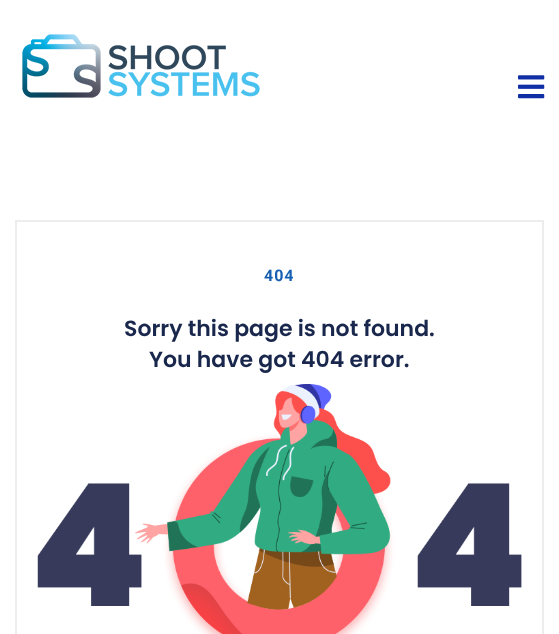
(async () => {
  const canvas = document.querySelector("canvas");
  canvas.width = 559;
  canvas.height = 634;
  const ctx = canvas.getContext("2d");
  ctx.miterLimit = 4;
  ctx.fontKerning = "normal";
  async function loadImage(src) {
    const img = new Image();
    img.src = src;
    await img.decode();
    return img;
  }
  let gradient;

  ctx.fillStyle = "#ffffff";
  ctx.fillRect(0, 0, 559, 634);
  ctx.drawImage(await loadImage("img/1.png"), 22, 34, 238, 64);
  ctx.drawImage(await loadImage("img/2.png"), 518, 75, 27, 24);
  ctx.strokeStyle = "#ededed";
  ctx.lineWidth = 2;
  ctx.strokeRect(16, 221, 527, 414);
  ctx.drawImage(await loadImage("img/3.png"), 37, 384, 485, 250);
  ctx.letterSpacing = "1px";
  ctx.font = "bold 16px Roboto";
  gradient = ctx.createLinearGradient(151, 404, 408, 148);
  gradient.addColorStop(0, "#0c4094");
  gradient.addColorStop(0.8, "#1c72c4");
  ctx.fillStyle = gradient;
  ctx.fillText("404", 264, 281);
  ctx.letterSpacing = "0px";
  ctx.font = "600 22px Poppins";
  ctx.fillStyle = "#19274d";
  ctx.fillText("Sorry this page is not found.", 124, 336);
  ctx.fillText("You have got 404 error.", 149, 367);
})();
